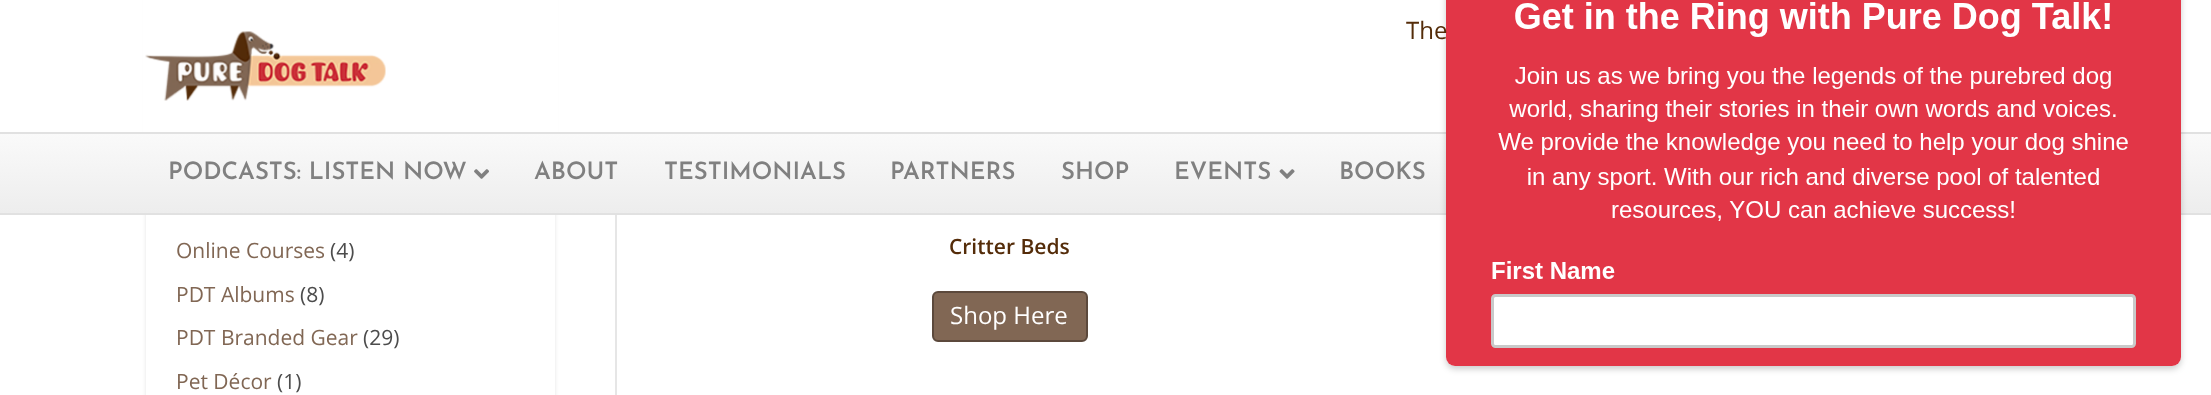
(async () => {
  const canvas = document.querySelector("canvas");
  canvas.width = 2211;
  canvas.height = 395;
  const ctx = canvas.getContext("2d");
  ctx.miterLimit = 4;
  ctx.fontKerning = "normal";
  async function loadImage(src) {
    const img = new Image();
    img.src = src;
    await img.decode();
    return img;
  }
  let gradient, path;

  ctx.fillStyle = "#ffffff";
  ctx.fillRect(0, 0, 2211, 395);
  ctx.save();
  path = new Path2D("M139 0H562V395H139ZM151-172H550C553-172 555-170 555-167V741C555 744 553 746 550 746H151C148 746 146 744 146 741V-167C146-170 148-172 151-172Z");
  ctx.clip(path, "evenodd");
  ctx.fillStyle = "rgba(0, 0, 0, 0.1)";
  ctx.filter = "blur(2px)";
  ctx.beginPath();
  ctx.roundRect(146, -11, 409, 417, 5);
  ctx.fill();
  ctx.filter = "none";
  ctx.restore();
  ctx.fillRect(143, 0, 415, 132);
  ctx.drawImage(await loadImage("img/1.png"), 145, 31, 241, 70);
  gradient = ctx.createLinearGradient(1106, 133, 1106, 213);
  gradient.addColorStop(0, "#fafafa");
  gradient.addColorStop(1, "#ededed");
  ctx.fillStyle = gradient;
  ctx.fillRect(0, 134, 2211, 79);
  ctx.fillStyle = "#e1e1e1";
  ctx.fillRect(0, 132, 2211, 2);
  ctx.fillRect(0, 213, 2211, 2);
  ctx.drawImage(await loadImage("img/2.png"), 474, 169, 15, 10);
  ctx.drawImage(await loadImage("img/3.png"), 1279, 169, 16, 10);
  ctx.fillStyle = "#e6e6e6";
  ctx.fillRect(615, 215, 2, 180);
  ctx.fillStyle = "#816754";
  ctx.beginPath();
  ctx.roundRect(933, 292, 154, 49, 5);
  ctx.fill();
  ctx.strokeStyle = "#5c493c";
  ctx.lineWidth = 2;
  ctx.stroke();
  ctx.fillStyle = "rgba(0, 0, 0, 0.2)";
  ctx.filter = "blur(3px)";
  ctx.beginPath();
  ctx.roundRect(1446, -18, 735, 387, 9);
  ctx.fill();
  ctx.filter = "none";
  ctx.fillStyle = "#ffffff";
  ctx.beginPath();
  ctx.roundRect(1446, -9, 735, 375, 9);
  ctx.fill();
  ctx.drawImage(await loadImage("img/4.png"), 1446, 0, 735, 366);
  ctx.font = "24px Open Sans";
  ctx.fillStyle = "#542c09";
  ctx.fillText("The", 1406, 39);
  ctx.font = "100 24px Josefin Sans";
  ctx.fillStyle = "#808080";
  for (const [text, x, y] of [
    ["PODCASTS: LISTEN NOW", 168, 179],
    ["ABOUT", 534, 179],
    ["TESTIMONIALS", 664, 179],
    ["PARTNERS", 890, 179],
    ["SHOP", 1061, 179],
    ["EVENTS", 1174, 179],
    ["BOOKS", 1339, 179],
  ]) {
    ctx.fillText(text, x, y);
  }
  ctx.font = "21px Open Sans";
  ctx.fillStyle = "#816754";
  ctx.fillText("Online Courses", 176, 258);
  ctx.fillStyle = "#4c4c4c";
  ctx.fillText("(4)", 330, 258);
  ctx.fillStyle = "#816754";
  ctx.fillText("PDT Albums", 176, 302);
  ctx.fillStyle = "#4c4c4c";
  ctx.fillText("(8)", 300, 302);
  ctx.fillStyle = "#816754";
  ctx.fillText("PDT Branded Gear", 176, 345);
  ctx.fillStyle = "#4c4c4c";
  ctx.fillText("(29)", 363, 345);
  ctx.fillStyle = "#816754";
  ctx.fillText("Pet Décor", 176, 389);
  ctx.fillStyle = "#4c4c4c";
  ctx.fillText("(1)", 277, 389);
  ctx.font = "600 21px Open Sans";
  ctx.fillStyle = "#542c09";
  ctx.fillText("Critter Beds", 949, 254);
  ctx.font = "24px Open Sans";
  ctx.fillStyle = "#ffffff";
  ctx.fillText("Shop Here", 950, 324);
})();
